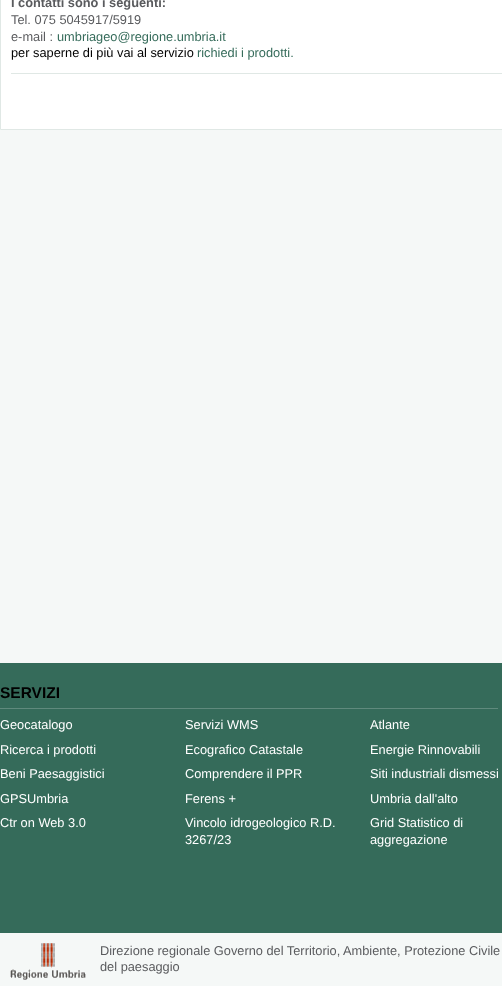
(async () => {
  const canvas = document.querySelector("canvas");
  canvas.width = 502;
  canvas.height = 986;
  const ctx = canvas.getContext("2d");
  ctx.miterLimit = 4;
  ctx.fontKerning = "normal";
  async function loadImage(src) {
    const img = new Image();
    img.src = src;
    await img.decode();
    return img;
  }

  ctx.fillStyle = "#f5f8f7";
  ctx.fillRect(0, 0, 502, 986);
  ctx.fillStyle = "#ffffff";
  ctx.beginPath();
  ctx.rect(0.5, -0.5, 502, 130);
  ctx.fill();
  ctx.strokeStyle = "#e0e8e5";
  ctx.stroke();
  for (const [x, y, w, h, color] of [
    [11, 73, 491, 1, "#e0e8e5"],
    [0, 663, 502, 270, "#356b5a"],
    [0, 708, 498, 1, "#608a7d"],
  ]) {
    ctx.fillStyle = color;
    ctx.fillRect(x, y, w, h);
  }
  ctx.drawImage(await loadImage("img/1.png"), 10, 943, 76, 37);
  ctx.font = "bold 12.8px Liberation Sans";
  ctx.fillStyle = "#5a5b5e";
  ctx.fillText("I contatti sono i seguenti:", 11, 7);
  ctx.font = "12.8px Liberation Sans";
  ctx.fillText("Tel. 075 5045917/5919", 11, 24);
  ctx.fillText("e-mail :", 11, 41);
  ctx.fillStyle = "#356b5a";
  ctx.fillText("umbriageo@regione.umbria.it", 57, 41);
  ctx.fillStyle = "#000000";
  ctx.fillText("per saperne di più vai al servizio", 11, 57);
  ctx.fillStyle = "#356b5a";
  ctx.fillText("richiedi i prodotti.", 197, 57);
  ctx.font = "bold 15.5px Liberation Sans";
  ctx.fillStyle = "#000000";
  ctx.fillText("SERVIZI", 0, 698);
  ctx.font = "12.8px Liberation Sans";
  ctx.fillStyle = "#ffffff";
  for (const [text, x, y] of [
    ["Geocatalogo", 0, 729],
    ["Servizi WMS", 185, 729],
    ["Atlante", 370, 729],
    ["Ricerca i prodotti", 0, 754],
    ["Ecografico Catastale", 185, 754],
    ["Energie Rinnovabili", 370, 754],
    ["Beni Paesaggistici", 0, 778],
    ["Comprendere il PPR", 185, 778],
    ["Siti industriali dismessi", 370, 778],
    ["GPSUmbria", 0, 803],
    ["Ferens +", 185, 803],
    ["Umbria dall'alto", 370, 803],
    ["Ctr on Web 3.0", 0, 827],
    ["Vincolo idrogeologico R.D.", 185, 827],
    ["3267/23", 185, 844],
    ["Grid Statistico di", 370, 827],
    ["aggregazione", 370, 844],
  ]) {
    ctx.fillText(text, x, y);
  }
  ctx.fillStyle = "#5a5b5e";
  ctx.fillText("Direzione regionale Governo del Territorio, Ambiente, Protezione Civile", 100, 955);
  ctx.fillText("del paesaggio", 100, 971);
})();
